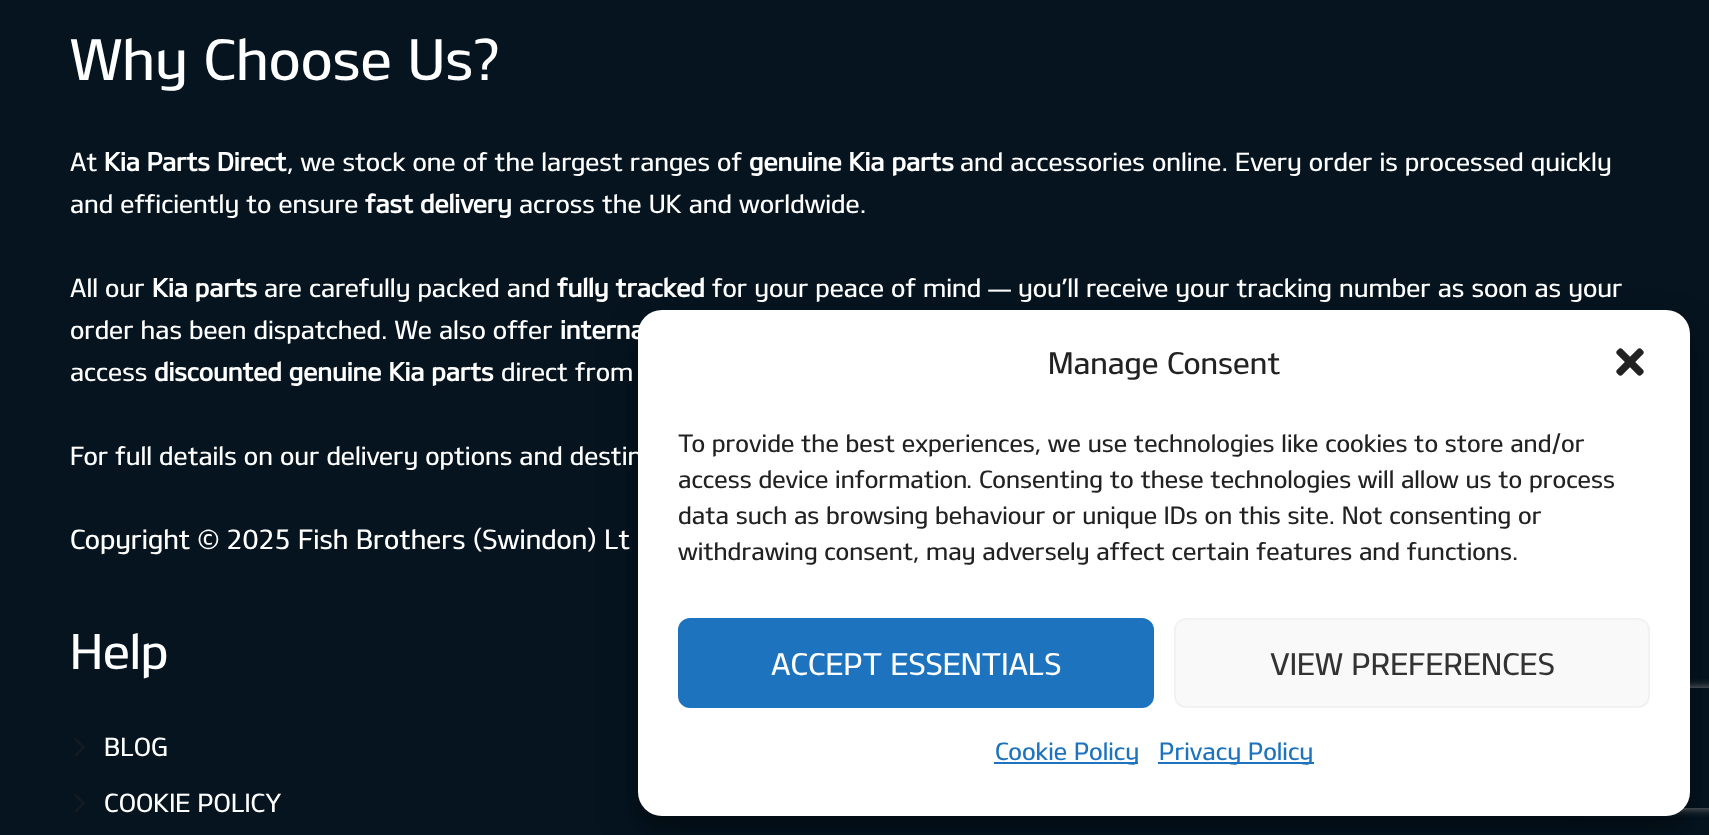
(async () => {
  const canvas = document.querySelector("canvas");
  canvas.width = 1709;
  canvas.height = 835;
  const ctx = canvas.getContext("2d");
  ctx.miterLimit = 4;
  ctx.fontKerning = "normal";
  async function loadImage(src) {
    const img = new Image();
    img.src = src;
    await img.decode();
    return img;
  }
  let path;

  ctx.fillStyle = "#05141f";
  ctx.fillRect(0, 0, 1709, 835);
  ctx.drawImage(await loadImage("img/1.png"), 74, 738, 11, 19);
  ctx.drawImage(await loadImage("img/1.png"), 74, 794, 11, 19);
  ctx.fillStyle = "rgba(0, 0, 0, 0.23)";
  ctx.filter = "blur(6px)";
  ctx.beginPath();
  ctx.roundRect(638, 322, 1052, 506, 24);
  ctx.fill();
  ctx.filter = "none";
  ctx.fillStyle = "rgba(0, 0, 0, 0.19)";
  ctx.filter = "blur(20px)";
  ctx.beginPath();
  ctx.roundRect(638, 330, 1052, 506, 24);
  ctx.fill();
  ctx.filter = "none";
  ctx.save();
  path = new Path2D("M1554 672H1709V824H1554ZM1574 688H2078C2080 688 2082 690 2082 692V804C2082 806 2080 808 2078 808H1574C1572 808 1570 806 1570 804V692C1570 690 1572 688 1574 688Z");
  ctx.clip(path, "evenodd");
  ctx.fillStyle = "#808080";
  ctx.filter = "blur(5px)";
  ctx.beginPath();
  ctx.roundRect(1570, 688, 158, 120, 4);
  ctx.fill();
  ctx.filter = "none";
  ctx.restore();
  ctx.fillStyle = "#ffffff";
  ctx.beginPath();
  ctx.roundRect(638, 310, 1052, 506, 24);
  ctx.fill();
  ctx.drawImage(await loadImage("img/2.png"), 1616, 348, 28, 28);
  ctx.fillStyle = "#1e73be";
  ctx.beginPath();
  ctx.roundRect(679, 619, 474, 88, 11);
  ctx.fill();
  ctx.strokeStyle = "#1e73be";
  ctx.lineWidth = 2;
  ctx.stroke();
  ctx.fillStyle = "#f9f9f9";
  ctx.beginPath();
  ctx.roundRect(1175, 619, 474, 88, 11);
  ctx.fill();
  ctx.strokeStyle = "#f2f2f2";
  ctx.stroke();
  ctx.fillStyle = "#1e73be";
  ctx.fillRect(994, 762, 144, 2);
  ctx.fillRect(1158, 762, 156, 2);
  ctx.font = "56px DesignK";
  ctx.fillStyle = "#ffffff";
  ctx.fillText("Why Choose Us?", 70, 80);
  ctx.font = "25.2px DesignK";
  ctx.fillText("At", 70, 171);
  ctx.font = "bold 25.2px DesignK";
  ctx.fillText("Kia Parts Direct", 104, 171);
  ctx.font = "25.2px DesignK";
  ctx.fillText(", we stock one of the largest ranges of", 287, 171);
  ctx.font = "bold 25.2px DesignK";
  ctx.fillText("genuine Kia parts", 749, 171);
  ctx.font = "25.2px DesignK";
  ctx.fillText("and accessories online. Every order is processed quickly", 960, 171);
  ctx.fillText("and efficiently to ensure", 70, 213);
  ctx.font = "bold 25.2px DesignK";
  ctx.fillText("fast delivery", 365, 213);
  ctx.font = "25.2px DesignK";
  ctx.fillText("across the UK and worldwide.", 519, 213);
  ctx.fillText("All our", 70, 297);
  ctx.font = "bold 25.2px DesignK";
  ctx.fillText("Kia parts", 152, 297);
  ctx.font = "25.2px DesignK";
  ctx.fillText("are carefully packed and", 264, 297);
  ctx.font = "bold 25.2px DesignK";
  ctx.fillText("fully tracked", 557, 297);
  ctx.font = "25.2px DesignK";
  ctx.fillText("for your peace of mind — you’ll receive your tracking number as soon as your", 712, 297);
  ctx.fillText("order has been dispatched. We also offer", 70, 339);
  ctx.font = "bold 25.2px DesignK";
  ctx.fillText("interna", 560, 339);
  ctx.font = "25.2px DesignK";
  ctx.fillText("access", 70, 381);
  ctx.font = "bold 25.2px DesignK";
  ctx.fillText("discounted genuine Kia parts", 154, 381);
  ctx.font = "25.2px DesignK";
  ctx.fillText("direct from", 501, 381);
  ctx.fillText("For full details on our delivery options and destin", 70, 465);
  ctx.font = "26.7px DesignK";
  ctx.fillText("Copyright © 2025 Fish Brothers (Swindon) Lt", 70, 549);
  ctx.font = "48px DesignK";
  ctx.fillText("Help", 70, 669);
  ctx.font = "25.2px DesignK";
  ctx.fillText("BLOG", 104, 756);
  ctx.fillText("COOKIE POLICY", 104, 812);
  ctx.font = "30px DesignK";
  ctx.fillStyle = "#222222";
  ctx.fillText("Manage Consent", 1048, 374);
  ctx.font = "24px DesignK";
  for (const [text, x, y] of [
    ["To provide the best experiences, we use technologies like cookies to store and/or", 678, 452],
    ["access device information. Consenting to these technologies will allow us to process", 678, 488],
    ["data such as browsing behaviour or unique IDs on this site. Not consenting or", 678, 524],
    ["withdrawing consent, may adversely affect certain features and functions.", 678, 560],
  ]) {
    ctx.fillText(text, x, y);
  }
  ctx.font = "30px DesignK";
  ctx.fillStyle = "#ffffff";
  ctx.fillText("ACCEPT ESSENTIALS", 771, 675);
  ctx.fillStyle = "#333333";
  ctx.fillText("VIEW PREFERENCES", 1270, 675);
  ctx.font = "24px DesignK";
  ctx.fillStyle = "#1e73be";
  ctx.fillText("Cookie Policy", 995, 760);
  ctx.fillText("Privacy Policy", 1159, 760);
})();
